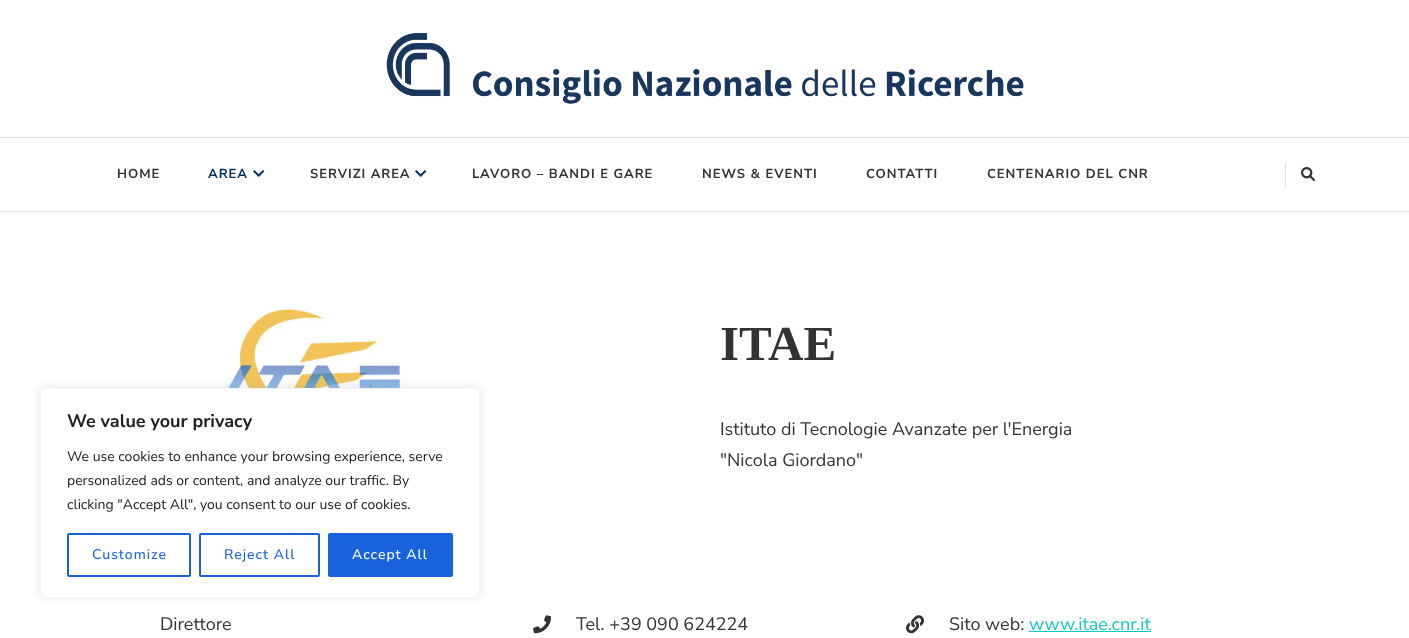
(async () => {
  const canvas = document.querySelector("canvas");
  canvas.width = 1409;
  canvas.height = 638;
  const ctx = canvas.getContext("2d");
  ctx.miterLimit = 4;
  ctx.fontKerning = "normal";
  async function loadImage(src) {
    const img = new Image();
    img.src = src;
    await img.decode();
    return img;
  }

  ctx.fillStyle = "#ffffff";
  ctx.fillRect(0, 0, 1409, 638);
  ctx.drawImage(await loadImage("img/1.png"), 386, 32, 638, 72);
  ctx.fillStyle = "#d9e0e7";
  ctx.fillRect(0, 137, 1409, 1);
  ctx.fillRect(0, 211, 1409, 1);
  ctx.drawImage(await loadImage("img/2.png"), 253, 170, 12, 7);
  ctx.drawImage(await loadImage("img/2.png"), 415, 170, 12, 7);
  ctx.fillRect(1285, 162, 1, 25);
  ctx.drawImage(await loadImage("img/3.png"), 1301, 167, 14, 14);
  ctx.drawImage(await loadImage("img/4.png"), 168, 306, 280, 82);
  ctx.drawImage(await loadImage("img/5.png"), 533, 615, 18, 19);
  ctx.drawImage(await loadImage("img/6.png"), 906, 615, 18, 19);
  ctx.fillStyle = "#10c7c7";
  ctx.fillRect(1029, 631, 122, 1);
  ctx.fillStyle = "rgba(172, 171, 171, 0.3)";
  ctx.filter = "blur(5px)";
  ctx.beginPath();
  ctx.roundRect(40, 387, 440, 210, 6);
  ctx.fill();
  ctx.filter = "none";
  ctx.fillStyle = "#ffffff";
  ctx.beginPath();
  ctx.roundRect(40.5, 388.5, 439, 209, 5.5);
  ctx.fill();
  ctx.strokeStyle = "#f4f4f4";
  ctx.stroke();
  ctx.beginPath();
  ctx.roundRect(68, 534, 122, 42, 1);
  ctx.strokeStyle = "#1863dc";
  ctx.lineWidth = 2;
  ctx.stroke();
  ctx.beginPath();
  ctx.roundRect(200, 534, 119, 42, 1);
  ctx.stroke();
  ctx.fillStyle = "#1863dc";
  ctx.beginPath();
  ctx.roundRect(329, 534, 123, 42, 1);
  ctx.fill();
  ctx.stroke();
  ctx.letterSpacing = "1px";
  ctx.font = "bold 13px Nunito Sans";
  ctx.fillStyle = "#333333";
  ctx.fillText("HOME", 117, 178);
  ctx.fillStyle = "#002f5f";
  ctx.fillText("AREA", 208, 178);
  ctx.fillStyle = "#333333";
  for (const [text, x, y] of [
    ["SERVIZI AREA", 310, 178],
    ["LAVORO – BANDI E GARE", 472, 178],
    ["NEWS & EVENTI", 702, 178],
    ["CONTATTI", 866, 178],
    ["CENTENARIO DEL CNR", 987, 178],
  ]) {
    ctx.fillText(text, x, y);
  }
  ctx.letterSpacing = "0px";
  ctx.font = "bold 49px Liberation Serif";
  ctx.fillText("ITAE", 720, 360);
  ctx.font = "18px Nunito Sans";
  for (const [text, x, y] of [
    ["Istituto di Tecnologie Avanzate per l'Energia", 720, 435],
    ["\"Nicola Giordano\"", 720, 466],
    ["Direttore", 160, 630],
    ["Tel. +39 090 624224", 576, 630],
    ["Sito web:", 949, 630],
  ]) {
    ctx.fillText(text, x, y);
  }
  ctx.fillStyle = "#10c7c7";
  ctx.fillText("www.itae.cnr.it", 1029, 630);
  ctx.font = "bold 18px Nunito Sans";
  ctx.fillStyle = "#212121";
  ctx.fillText("We value your privacy", 67, 427);
  ctx.font = "14px Nunito Sans";
  for (const [text, x, y] of [
    ["We use cookies to enhance your browsing experience, serve", 67, 461],
    ["personalized ads or content, and analyze our traffic. By", 67, 485],
    ["clicking \"Accept All\", you consent to our use of cookies.", 67, 509],
  ]) {
    ctx.fillText(text, x, y);
  }
  ctx.letterSpacing = "1px";
  ctx.font = "500 14px Nunito Sans";
  ctx.fillStyle = "#1863dc";
  ctx.fillText("Customize", 92, 559);
  ctx.fillText("Reject All", 224, 559);
  ctx.fillStyle = "#ffffff";
  ctx.fillText("Accept All", 352, 559);
})();
